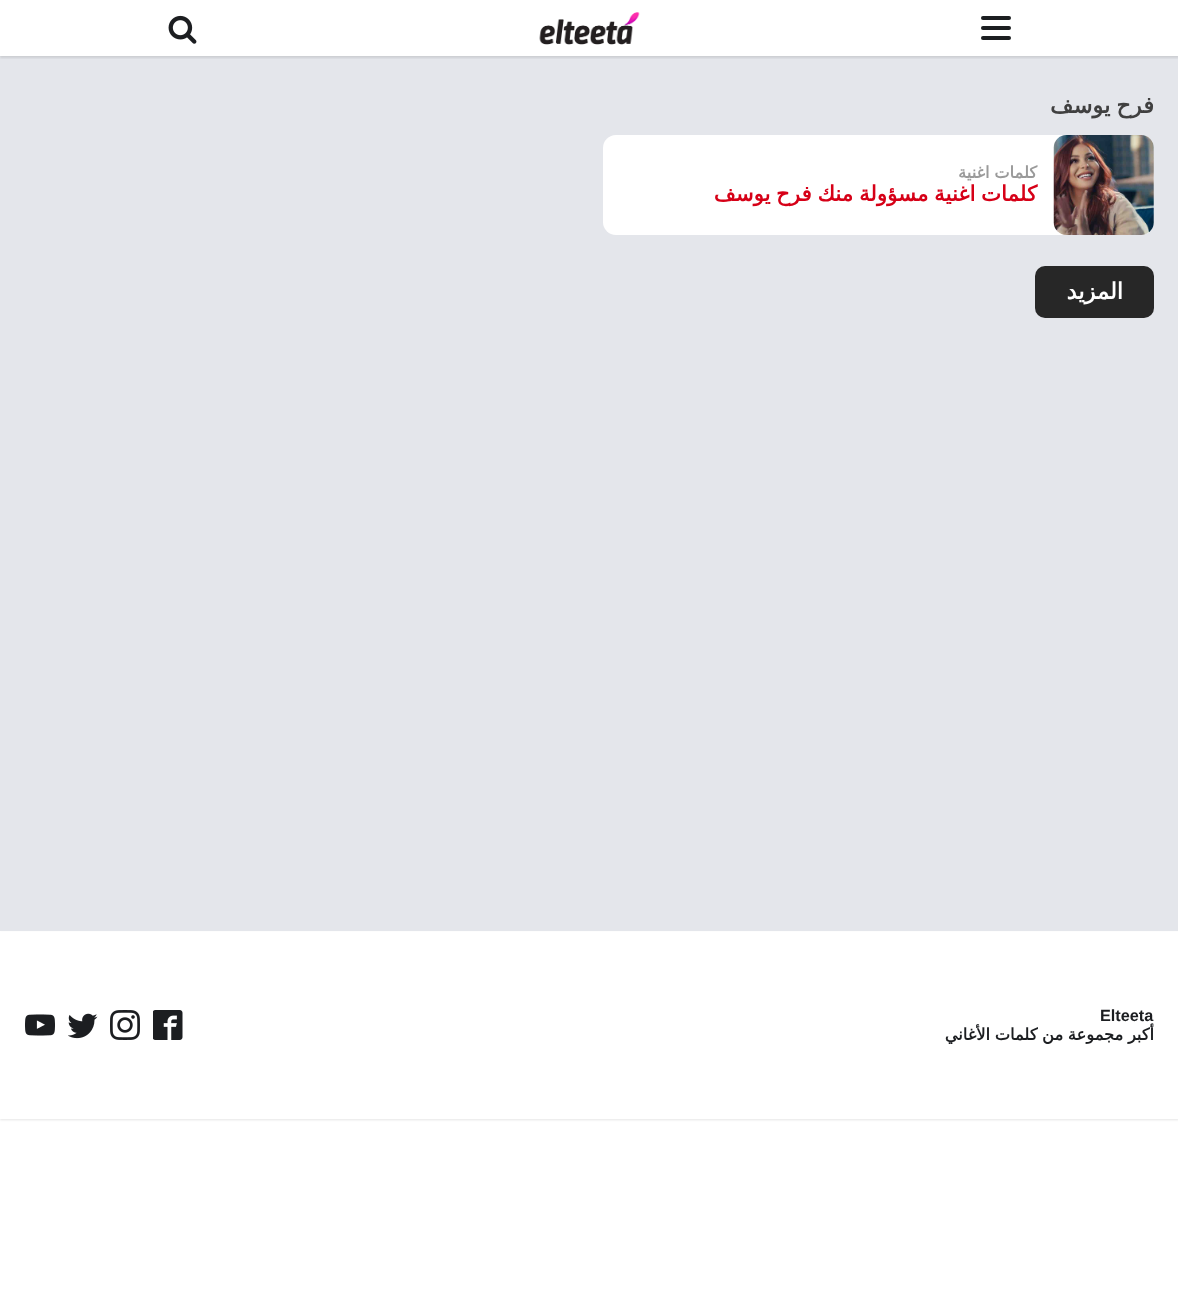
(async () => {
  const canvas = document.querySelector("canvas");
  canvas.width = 1178;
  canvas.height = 1309;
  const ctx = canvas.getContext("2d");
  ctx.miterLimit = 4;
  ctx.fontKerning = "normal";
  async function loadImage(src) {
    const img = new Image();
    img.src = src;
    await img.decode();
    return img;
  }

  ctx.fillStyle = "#ffffff";
  ctx.fillRect(0, 0, 1178, 1309);
  ctx.fillStyle = "#e4e6eb";
  ctx.fillRect(0, 56, 1178, 875);
  ctx.save();
  ctx.beginPath();
  ctx.rect(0, 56, 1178, 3);
  ctx.clip();
  ctx.fillStyle = "rgba(0, 0, 0, 0.1)";
  ctx.filter = "blur(1px)";
  ctx.beginPath();
  ctx.rect(0, 1, 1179, 57);
  ctx.fill();
  ctx.filter = "none";
  ctx.restore();
  ctx.fillStyle = "#1c1e21";
  ctx.beginPath();
  ctx.roundRect(981, 16, 30, 4, 2);
  ctx.fill();
  ctx.beginPath();
  ctx.roundRect(981, 26, 30, 4, 2);
  ctx.fill();
  ctx.beginPath();
  ctx.roundRect(981, 36, 30, 4, 2);
  ctx.fill();
  ctx.drawImage(await loadImage("img/1.png"), 539, 12, 101, 33);
  ctx.drawImage(await loadImage("img/2.png"), 168, 15, 29, 29);
  ctx.fillStyle = "#ffffff";
  ctx.beginPath();
  ctx.roundRect(603, 135, 551, 100, 13);
  ctx.fill();
  ctx.drawImage(await loadImage("img/3.png"), 1053, 135, 101, 100);
  ctx.fillStyle = "#272727";
  ctx.beginPath();
  ctx.roundRect(1035, 266, 119, 52, 10);
  ctx.fill();
  ctx.fillStyle = "rgba(0, 0, 0, 0.1)";
  ctx.filter = "blur(1px)";
  ctx.beginPath();
  ctx.rect(0, 933, 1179, 187);
  ctx.fill();
  ctx.filter = "none";
  ctx.fillStyle = "#ffffff";
  ctx.fillRect(0, 932, 1178, 187);
  ctx.drawImage(await loadImage("img/4.png"), 153, 1010, 30, 30);
  ctx.drawImage(await loadImage("img/5.png"), 110, 1010, 30, 30);
  ctx.drawImage(await loadImage("img/6.png"), 68, 1013, 30, 26);
  ctx.drawImage(await loadImage("img/7.png"), 25, 1014, 30, 22);
  ctx.wordSpacing = "-1px";
  ctx.direction = "rtl";
  ctx.font = "bold 22.5px DejaVu Sans";
  ctx.fillStyle = "#404040";
  ctx.fillText("فرح يوسف", 1154, 113);
  ctx.wordSpacing = "-0.5px";
  ctx.font = "bold 16.25px DejaVu Sans";
  ctx.fillStyle = "#9a9a9a";
  ctx.fillText("كلمات اغنية", 1037, 178);
  ctx.wordSpacing = "-1px";
  ctx.font = "bold 21.25px DejaVu Sans";
  ctx.fillStyle = "#d60017";
  ctx.fillText("كلمات اغنية مسؤولة منك فرح يوسف", 1037, 201);
  ctx.wordSpacing = "0px";
  ctx.font = "bold 22.5px DejaVu Sans";
  ctx.fillStyle = "#ffffff";
  ctx.fillText("المزيد", 1123, 299);
  ctx.direction = "ltr";
  ctx.font = "bold 16.25px Liberation Sans";
  ctx.fillStyle = "#1c1e21";
  ctx.fillText("Elteeta", 1100, 1021);
  ctx.wordSpacing = "-0.5px";
  ctx.direction = "rtl";
  ctx.font = "bold 16.25px DejaVu Sans";
  ctx.fillText("أكبر مجموعة من كلمات الأغاني", 1154, 1040);
})();
